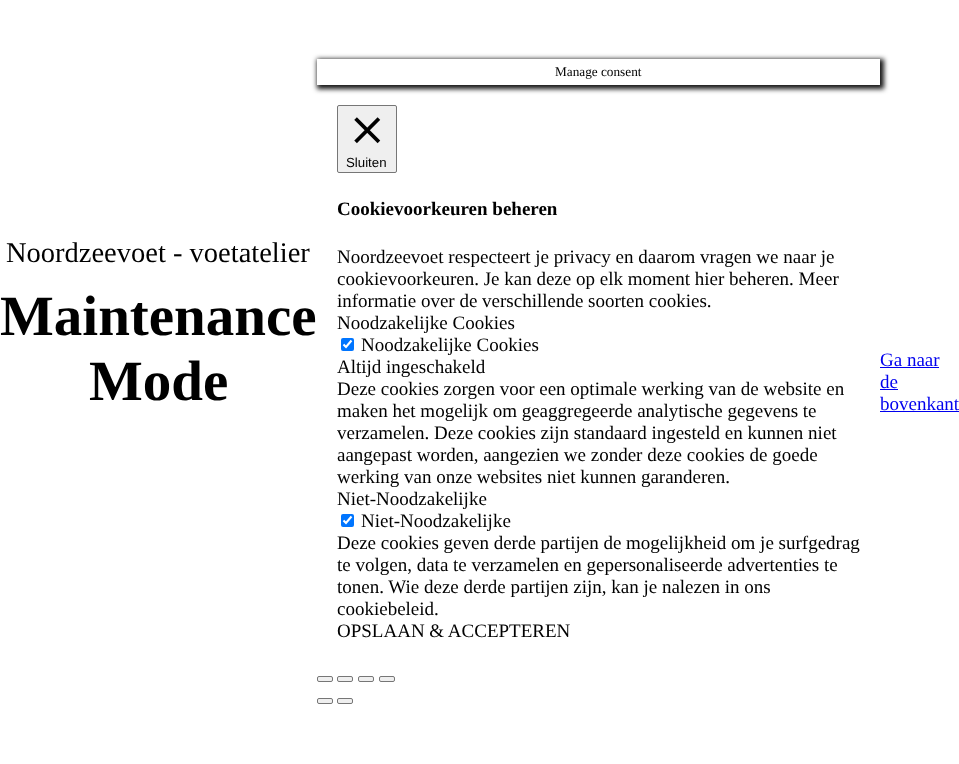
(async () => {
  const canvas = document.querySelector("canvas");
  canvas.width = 959;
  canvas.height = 764;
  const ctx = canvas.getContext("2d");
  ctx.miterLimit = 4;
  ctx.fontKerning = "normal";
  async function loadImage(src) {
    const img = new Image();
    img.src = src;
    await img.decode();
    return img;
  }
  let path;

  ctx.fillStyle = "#ffffff";
  ctx.fillRect(0, 0, 959, 764);
  ctx.save();
  path = new Path2D("M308 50H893V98H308ZM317 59H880V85H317Z");
  ctx.clip(path, "evenodd");
  ctx.fillStyle = "#161616";
  ctx.filter = "blur(2.5px)";
  ctx.beginPath();
  ctx.rect(317, 59, 567, 30);
  ctx.fill();
  ctx.filter = "none";
  ctx.restore();
  ctx.fillStyle = "#efefef";
  ctx.beginPath();
  ctx.roundRect(337.5, 105.5, 59, 67, 1.5);
  ctx.fill();
  ctx.strokeStyle = "#767676";
  ctx.stroke();
  ctx.drawImage(await loadImage("img/1.png"), 354, 117, 27, 27);
  ctx.fillStyle = "#0075ff";
  ctx.beginPath();
  ctx.roundRect(341, 338, 13, 13, 2);
  ctx.fill();
  path = new Path2D("M343.5 344.5L346 347L351.5 340.5");
  ctx.strokeStyle = "#ffffff";
  ctx.lineWidth = 2.1;
  ctx.stroke(path);
  ctx.beginPath();
  ctx.roundRect(341, 514, 13, 13, 2);
  ctx.fill();
  path = new Path2D("M343.5 520.5L346 523L351.5 516.5");
  ctx.stroke(path);
  ctx.fillStyle = "#efefef";
  ctx.beginPath();
  ctx.roundRect(317.5, 676.5, 15, 5, 1.5);
  ctx.fill();
  ctx.strokeStyle = "#767676";
  ctx.lineWidth = 1;
  ctx.stroke();
  ctx.beginPath();
  ctx.roundRect(337.5, 676.5, 15, 5, 1.5);
  ctx.fill();
  ctx.stroke();
  ctx.beginPath();
  ctx.roundRect(358.5, 676.5, 15, 5, 1.5);
  ctx.fill();
  ctx.stroke();
  ctx.beginPath();
  ctx.roundRect(379.5, 676.5, 15, 5, 1.5);
  ctx.fill();
  ctx.stroke();
  ctx.beginPath();
  ctx.roundRect(317.5, 698.5, 15, 5, 1.5);
  ctx.fill();
  ctx.stroke();
  ctx.beginPath();
  ctx.roundRect(337.5, 698.5, 15, 5, 1.5);
  ctx.fill();
  ctx.stroke();
  for (const [x, y, w, h, color] of [
    [880, 367, 59, 1, "#0000ee"],
    [880, 389, 18, 1, "#0000ee"],
    [880, 411, 79, 1, "#0000ee"],
  ]) {
    ctx.fillStyle = color;
    ctx.fillRect(x, y, w, h);
  }
  ctx.font = "28.5px Liberation Serif";
  ctx.fillStyle = "#000000";
  ctx.fillText("Noordzeevoet - voetatelier", 6, 262);
  ctx.font = "bold 57px Liberation Serif";
  ctx.fillText("Maintenance", 0, 335);
  ctx.fillText("Mode", 89, 400);
  ctx.font = "13.25px Liberation Serif";
  ctx.fillText("Manage consent", 555, 76);
  ctx.font = "13.25px Liberation Sans";
  ctx.fillText("Sluiten", 346, 167);
  ctx.font = "bold 19px Liberation Serif";
  ctx.fillText("Cookievoorkeuren beheren", 337, 215);
  ctx.font = "19px Liberation Serif";
  for (const [text, x, y] of [
    ["Noordzeevoet respecteert je privacy en daarom vragen we naar je", 337, 263],
    ["cookievoorkeuren. Je kan deze op elk moment hier beheren. Meer", 337, 285],
    ["informatie over de verschillende soorten cookies.", 337, 307],
    ["Noodzakelijke Cookies", 337, 329],
    ["Noodzakelijke Cookies", 361, 351],
    ["Altijd ingeschakeld", 337, 373],
    ["Deze cookies zorgen voor een optimale werking van de website en", 337, 395],
    ["maken het mogelijk om geaggregeerde analytische gegevens te", 337, 417],
    ["verzamelen. Deze cookies zijn standaard ingesteld en kunnen niet", 337, 439],
    ["aangepast worden, aangezien we zonder deze cookies de goede", 337, 461],
    ["werking van onze websites niet kunnen garanderen.", 337, 483],
    ["Niet-Noodzakelijke", 337, 505],
    ["Niet-Noodzakelijke", 361, 527],
    ["Deze cookies geven derde partijen de mogelijkheid om je surfgedrag", 337, 549],
    ["te volgen, data te verzamelen en gepersonaliseerde advertenties te", 337, 571],
    ["tonen. Wie deze derde partijen zijn, kan je nalezen in ons", 337, 593],
    ["cookiebeleid.", 337, 615],
    ["OPSLAAN & ACCEPTEREN", 337, 637],
  ]) {
    ctx.fillText(text, x, y);
  }
  ctx.fillStyle = "#0000ee";
  for (const [text, x, y] of [
    ["Ga naar", 880, 366],
    ["de", 880, 388],
    ["bovenkant", 880, 410],
  ]) {
    ctx.fillText(text, x, y);
  }
})();
